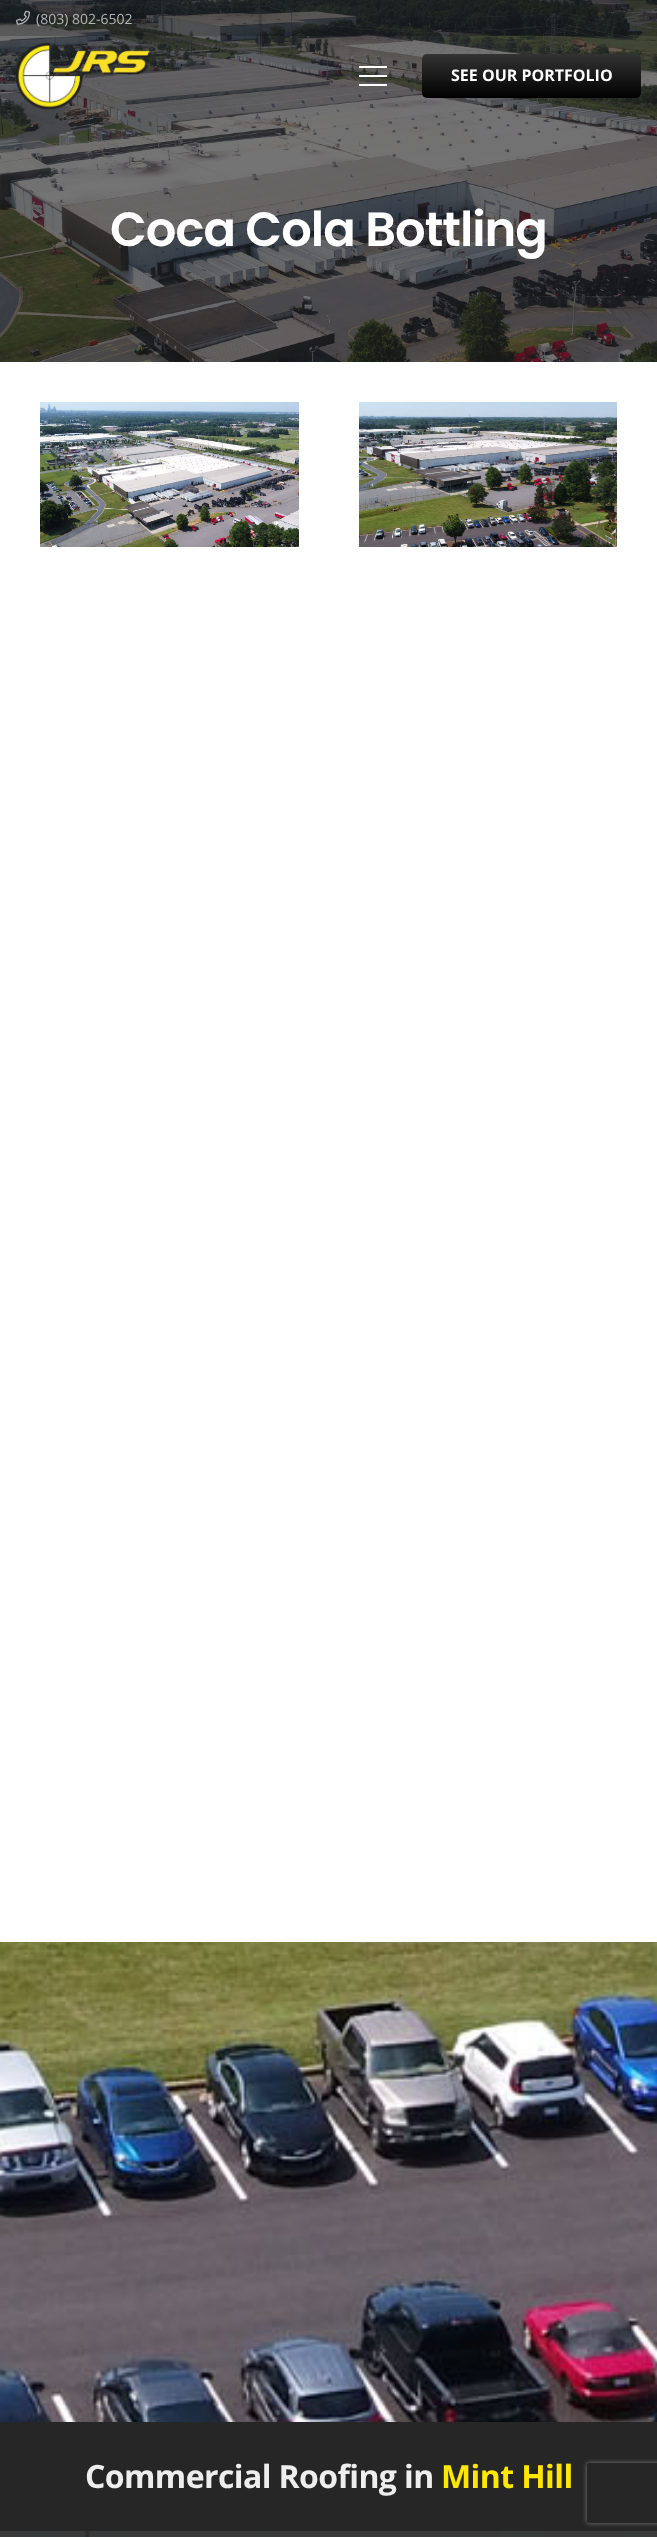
(async () => {
  const canvas = document.querySelector("canvas");
  canvas.width = 657;
  canvas.height = 2537;
  const ctx = canvas.getContext("2d");
  ctx.miterLimit = 4;
  ctx.fontKerning = "normal";
  async function loadImage(src) {
    const img = new Image();
    img.src = src;
    await img.decode();
    return img;
  }
  let gradient, path;

  ctx.fillStyle = "#ffffff";
  ctx.fillRect(0, 0, 657, 2537);
  ctx.drawImage(await loadImage("img/3.png"), 0, 0, 657, 362);
  ctx.fillStyle = "rgba(0, 0, 0, 0.2)";
  ctx.fillRect(0, 0, 657, 36);
  ctx.drawImage(await loadImage("img/1.png"), 16, 10, 14, 15);
  ctx.drawImage(await loadImage("img/2.png"), 16, 43, 135, 67);
  for (const [x, y, w, h, color] of [
    [359, 75, 28, 2, "#ffffff"],
    [359, 66, 28, 2, "#ffffff"],
    [359, 84, 28, 2, "#ffffff"],
  ]) {
    ctx.fillStyle = color;
    ctx.fillRect(x, y, w, h);
  }
  gradient = ctx.createLinearGradient(532, 98, 532, 54);
  gradient.addColorStop(0, "#000000");
  gradient.addColorStop(1, "#333333");
  ctx.fillStyle = gradient;
  ctx.beginPath();
  ctx.roundRect(422, 54, 219, 44, 5);
  ctx.fill();
  ctx.drawImage(await loadImage("img/4.png"), 40, 402, 259, 145);
  ctx.drawImage(await loadImage("img/5.png"), 359, 402, 258, 145);
  ctx.drawImage(await loadImage("img/6.png"), 0, 1942, 657, 480);
  ctx.fillStyle = "#262626";
  ctx.fillRect(0, 2422, 657, 109);
  ctx.drawImage(await loadImage("img/7.png"), 0, 2531, 657, 6);
  ctx.save();
  path = new Path2D("M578 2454H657V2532H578ZM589 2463H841C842 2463 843 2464 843 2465V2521C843 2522 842 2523 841 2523H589C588 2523 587 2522 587 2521V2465C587 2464 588 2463 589 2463Z");
  ctx.clip(path, "evenodd");
  ctx.fillStyle = "#808080";
  ctx.filter = "blur(2.5px)";
  ctx.beginPath();
  ctx.roundRect(587, 2463, 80, 60, 2);
  ctx.fill();
  ctx.filter = "none";
  ctx.restore();
  ctx.font = "14px Open Sans";
  ctx.fillStyle = "#b4b6b5";
  ctx.fillText("(803) 802-6502", 36, 24);
  ctx.font = "bold 16px Open Sans";
  ctx.fillStyle = "#ffffff";
  ctx.fillText("SEE OUR PORTFOLIO", 451, 81);
  ctx.letterSpacing = "-1px";
  ctx.font = "600 48px Poppins";
  ctx.fillText("Coca Cola Bottling", 110, 246);
  ctx.letterSpacing = "-0.6px";
  ctx.font = "bold 32px Open Sans";
  ctx.fillStyle = "#eeeeee";
  ctx.fillText("Commercial Roofing in", 85, 2488);
  ctx.fillStyle = "#ffe700";
  ctx.fillText("Mint Hill", 441, 2488);
})();
